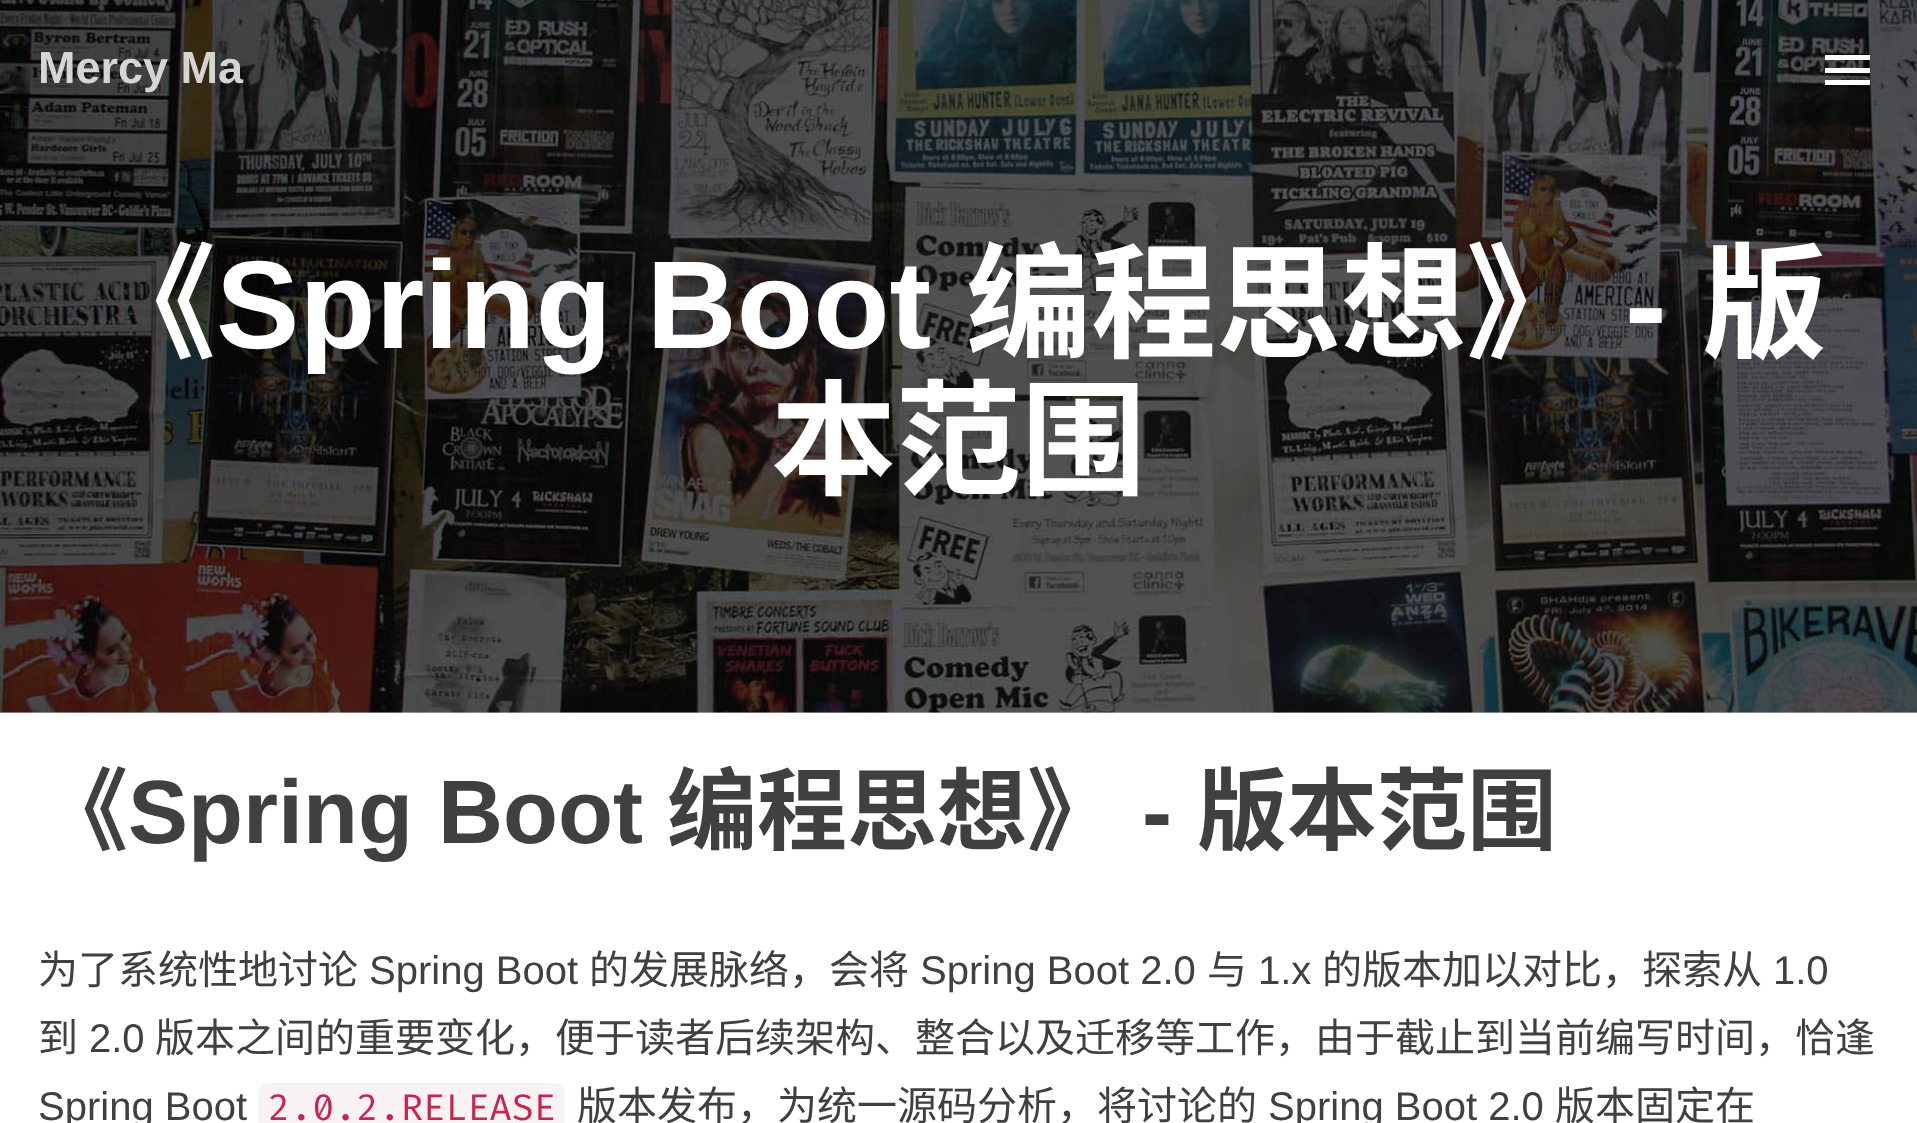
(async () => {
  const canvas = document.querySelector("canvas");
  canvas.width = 1917;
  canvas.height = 1123;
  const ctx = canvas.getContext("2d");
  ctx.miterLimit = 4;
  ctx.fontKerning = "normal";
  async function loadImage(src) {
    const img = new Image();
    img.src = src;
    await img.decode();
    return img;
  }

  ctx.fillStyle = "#ffffff";
  ctx.fillRect(0, 0, 1917, 1123);
  ctx.fillStyle = "#cccccc";
  ctx.fillRect(0, 712, 1917, 1);
  ctx.drawImage(await loadImage("img/1.png"), 0, 0, 1917, 713);
  for (const [x, y, w, h, color] of [
    [1825, 55, 45, 5, "#ffffff"],
    [1825, 68, 45, 5, "#ffffff"],
    [1825, 80, 45, 5, "#ffffff"],
  ]) {
    ctx.fillStyle = color;
    ctx.fillRect(x, y, w, h);
  }
  ctx.fillStyle = "#f9f2f4";
  ctx.beginPath();
  ctx.roundRect(258, 1083, 307, 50, 10);
  ctx.fill();
  ctx.font = "bold 45px Liberation Sans";
  ctx.fillStyle = "#d6d5d4";
  ctx.fillText("Mercy Ma", 38, 83);
  ctx.font = "bold 125px Noto Sans CJK SC";
  ctx.fillStyle = "#ffffff";
  ctx.fillText("《", 91, 348);
  ctx.font = "bold 125px Liberation Sans";
  ctx.fillText("Spring Boot", 216, 348);
  ctx.font = "bold 125px Noto Sans CJK SC";
  ctx.fillText("编程思想》", 966, 348);
  ctx.font = "bold 125px Liberation Sans";
  ctx.fillText("-", 1625, 348);
  ctx.font = "bold 125px Noto Sans CJK SC";
  ctx.fillText("版", 1702, 348);
  ctx.fillText("本范围", 771, 485);
  ctx.font = "bold 90px Noto Sans CJK SC";
  ctx.fillStyle = "#404040";
  ctx.fillText("《", 38, 843);
  ctx.font = "bold 90px Liberation Sans";
  ctx.fillText("Spring Boot", 128, 843);
  ctx.font = "bold 90px Noto Sans CJK SC";
  ctx.fillText("编程思想》", 667, 843);
  ctx.font = "bold 90px Liberation Sans";
  ctx.fillText("-", 1142, 843);
  ctx.font = "bold 90px Noto Sans CJK SC";
  ctx.fillText("版本范围", 1197, 843);
  ctx.font = "40px Noto Sans CJK SC";
  ctx.fillText("为了系统性地讨论", 38, 984);
  ctx.font = "40px Liberation Sans";
  ctx.fillText("Spring Boot", 369, 984);
  ctx.font = "40px Noto Sans CJK SC";
  ctx.fillText("的发展脉络，会将", 589, 984);
  ctx.font = "40px Liberation Sans";
  ctx.fillText("Spring Boot 2.0", 920, 984);
  ctx.font = "40px Noto Sans CJK SC";
  ctx.fillText("与", 1207, 984);
  ctx.font = "40px Liberation Sans";
  ctx.fillText("1.x", 1258, 984);
  ctx.font = "40px Noto Sans CJK SC";
  ctx.fillText("的版本加以对比，探索从", 1322, 984);
  ctx.font = "40px Liberation Sans";
  ctx.fillText("1.0", 1773, 984);
  ctx.font = "40px Noto Sans CJK SC";
  ctx.fillText("到", 38, 1052);
  ctx.font = "40px Liberation Sans";
  ctx.fillText("2.0", 89, 1052);
  ctx.font = "40px Noto Sans CJK SC";
  ctx.fillText("版本之间的重要变化，便于读者后续架构、整合以及迁移等工作，由于截止到当前编写时间，恰逢", 155, 1052);
  ctx.font = "40px Liberation Sans";
  ctx.fillText("Spring Boot", 38, 1120);
  ctx.font = "36px Fira Code";
  ctx.fillStyle = "#c7254e";
  ctx.fillText("2.0.2.RELEASE", 268, 1120);
  ctx.font = "40px Noto Sans CJK SC";
  ctx.fillStyle = "#404040";
  ctx.fillText("版本发布，为统一源码分析，将讨论的", 577, 1120);
  ctx.font = "40px Liberation Sans";
  ctx.fillText("Spring Boot 2.0", 1268, 1120);
  ctx.font = "40px Noto Sans CJK SC";
  ctx.fillText("版本固定在", 1555, 1120);
})();
